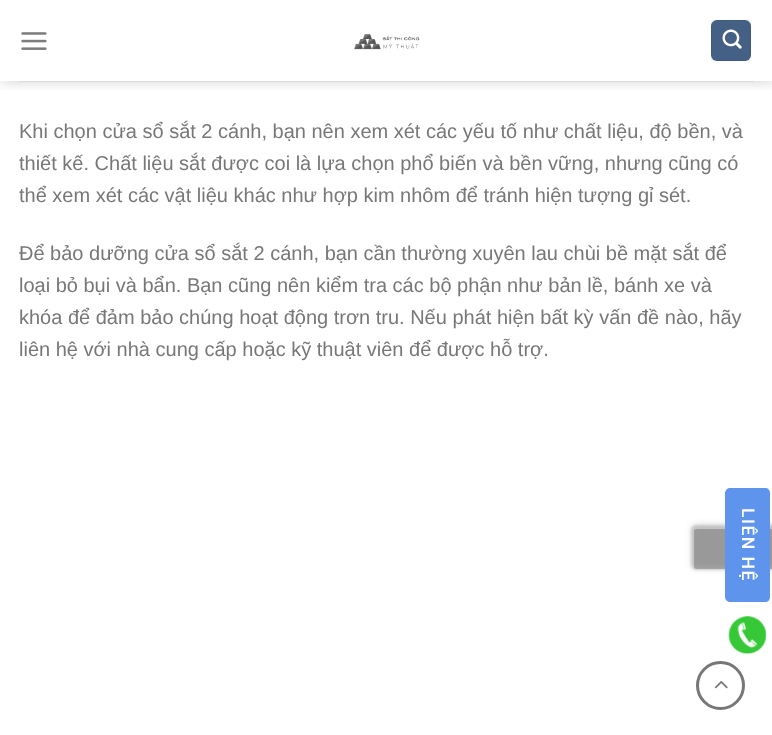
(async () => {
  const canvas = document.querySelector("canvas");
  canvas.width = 772;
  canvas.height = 735;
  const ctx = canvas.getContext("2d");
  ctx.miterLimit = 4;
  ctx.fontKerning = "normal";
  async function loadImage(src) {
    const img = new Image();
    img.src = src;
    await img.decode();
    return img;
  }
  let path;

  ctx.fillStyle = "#ffffff";
  ctx.fillRect(0, 0, 772, 735);
  ctx.save();
  ctx.beginPath();
  ctx.rect(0, 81, 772, 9);
  ctx.clip();
  ctx.fillStyle = "rgba(0, 0, 0, 0.15)";
  ctx.filter = "blur(6px)";
  ctx.beginPath();
  ctx.rect(1, 1, 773, 82);
  ctx.fill();
  ctx.filter = "none";
  ctx.restore();
  ctx.drawImage(await loadImage("img/1.png"), 21, 32, 26, 18);
  ctx.drawImage(await loadImage("img/2.png"), 354, 34, 66, 16);
  ctx.fillStyle = "#446084";
  ctx.beginPath();
  ctx.roundRect(711, 20, 40, 41, 6);
  ctx.fill();
  ctx.strokeStyle = "rgba(0, 0, 0, 0.05)";
  ctx.strokeRect(711.5, 20.5, 39, 40);
  ctx.drawImage(await loadImage("img/3.png"), 722, 29, 20, 20);
  ctx.fillStyle = "rgba(119, 119, 119, 0.1)";
  ctx.fillRect(19, 81, 735, 1);
  ctx.fillStyle = "rgba(0, 0, 0, 0.12)";
  ctx.filter = "blur(3px)";
  ctx.beginPath();
  ctx.roundRect(691, 524, 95, 45, 5);
  ctx.fill();
  ctx.filter = "none";
  ctx.fillStyle = "rgba(0, 0, 0, 0.14)";
  ctx.filter = "blur(1px)";
  ctx.beginPath();
  ctx.roundRect(691, 525, 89, 45, 5);
  ctx.fill();
  ctx.filter = "none";
  ctx.fillStyle = "rgba(0, 0, 0, 0.2)";
  ctx.filter = "blur(0.5px)";
  ctx.beginPath();
  ctx.roundRect(694, 529, 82, 40, 2.5);
  ctx.fill();
  ctx.filter = "none";
  ctx.fillStyle = "#5f94ec";
  path = new Path2D("M770 493V597C770 600 768 602 765 602H730C728 602 725 600 725 597V493C725 490 728 488 730 488H765C768 488 770 490 770 493Z");
  ctx.fill(path);
  ctx.drawImage(await loadImage("img/4.png"), 728, 616, 39, 39);
  ctx.beginPath();
  ctx.arc(720.5, 685.5, 23, 0, Math.PI * 2);
  ctx.strokeStyle = "#777777";
  ctx.lineWidth = 3;
  ctx.stroke();
  ctx.drawImage(await loadImage("img/5.png"), 714, 680, 14, 9);
  ctx.font = "20px Liberation Sans";
  ctx.fillStyle = "#777777";
  for (const [text, x, y] of [
    ["Khi chọn cửa sổ sắt 2 cánh, bạn nên xem xét các yếu tố như chất liệu, độ bền, và", 19, 138],
    ["thiết kế. Chất liệu sắt được coi là lựa chọn phổ biến và bền vững, nhưng cũng có", 19, 170],
    ["thể xem xét các vật liệu khác như hợp kim nhôm để tránh hiện tượng gỉ sét.", 19, 202],
    ["Để bảo dưỡng cửa sổ sắt 2 cánh, bạn cần thường xuyên lau chùi bề mặt sắt để", 19, 260],
    ["loại bỏ bụi và bẩn. Bạn cũng nên kiểm tra các bộ phận như bản lề, bánh xe và", 19, 292],
    ["khóa để đảm bảo chúng hoạt động trơn tru. Nếu phát hiện bất kỳ vấn đề nào, hãy", 19, 324],
    ["liên hệ với nhà cung cấp hoặc kỹ thuật viên để được hỗ trợ.", 19, 356],
  ]) {
    ctx.fillText(text, x, y);
  }
  ctx.letterSpacing = "1.5px";
  ctx.font = "500 17.5px Roboto";
  ctx.fillStyle = "#ffffff";
  ctx.save();
  ctx.translate(742, 508);
  ctx.rotate(90 * Math.PI / 180);
  ctx.fillText("LIÊN HỆ", 0, 0);
  ctx.restore();
})();
